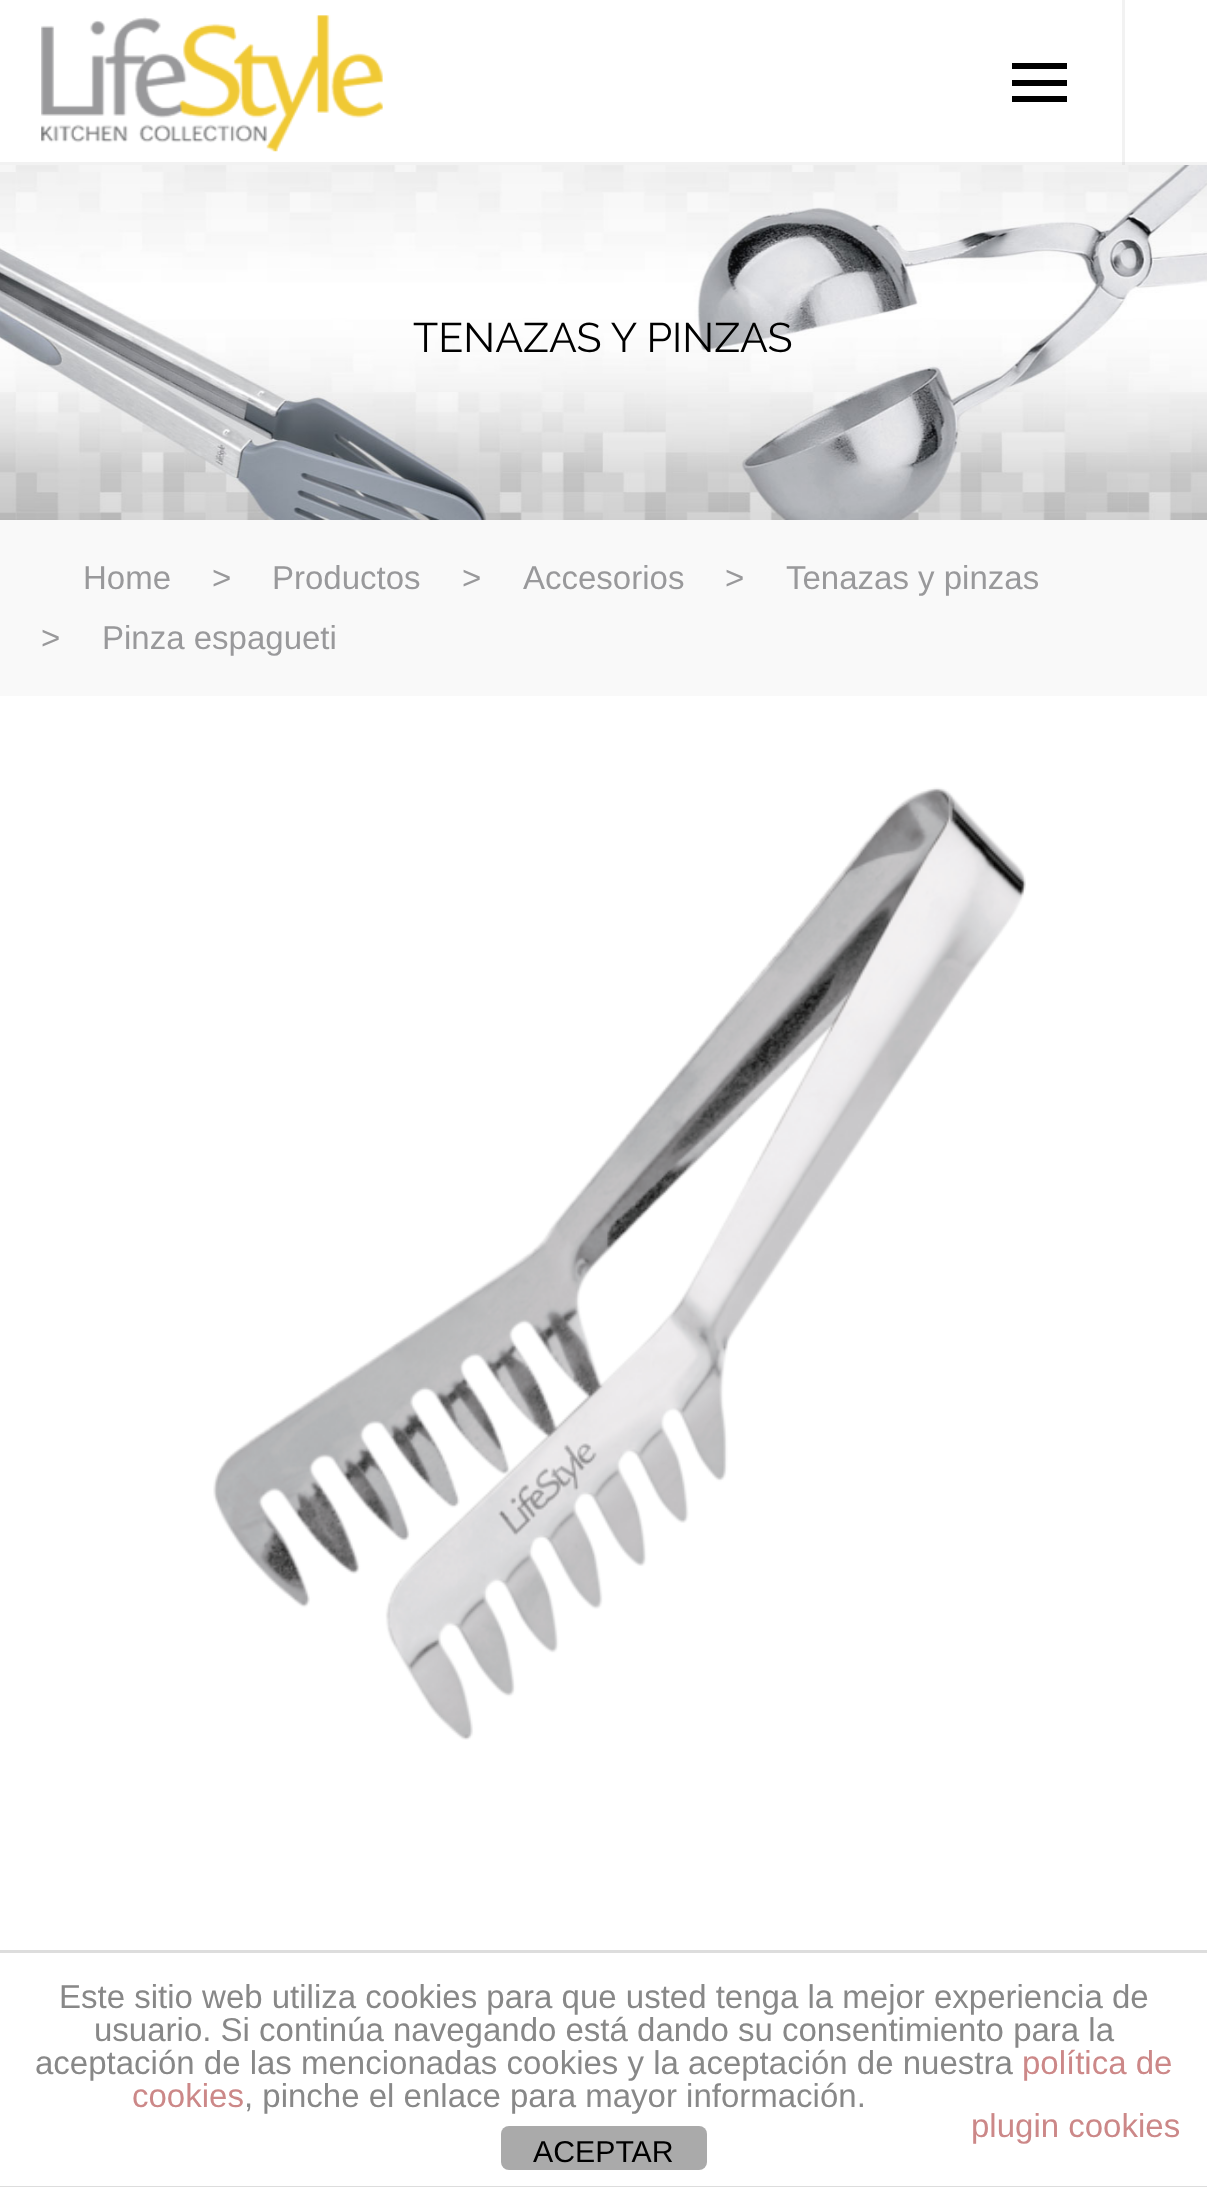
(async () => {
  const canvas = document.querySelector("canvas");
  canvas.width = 1207;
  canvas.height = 2187;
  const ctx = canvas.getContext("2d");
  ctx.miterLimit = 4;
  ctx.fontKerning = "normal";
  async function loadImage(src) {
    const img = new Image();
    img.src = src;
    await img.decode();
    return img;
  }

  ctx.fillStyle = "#ffffff";
  ctx.fillRect(0, 0, 1207, 2187);
  for (const [x, y, w, h, color] of [
    [1122, 0, 3, 165, "#f2f2f2"],
    [0, 162, 1207, 3, "#f2f2f2"],
    [1122, 162, 3, 3, "#e6e6e6"],
  ]) {
    ctx.fillStyle = color;
    ctx.fillRect(x, y, w, h);
  }
  ctx.drawImage(await loadImage("img/1.png"), 41, 15, 342, 137);
  for (const [x, y, w, h, color] of [
    [1012, 80, 55, 6, "#000000"],
    [1012, 63, 55, 6, "#000000"],
    [1012, 96, 55, 6, "#000000"],
  ]) {
    ctx.fillStyle = color;
    ctx.fillRect(x, y, w, h);
  }
  ctx.drawImage(await loadImage("img/2.png"), 0, 165, 1207, 355);
  ctx.fillStyle = "#f9f9f9";
  ctx.fillRect(0, 520, 1207, 176);
  ctx.drawImage(await loadImage("img/3.png"), 213, 787, 813, 953);
  ctx.fillStyle = "#dddddd";
  ctx.fillRect(0, 1950, 1207, 3);
  ctx.fillRect(0, 2186, 1207, 1);
  ctx.fillStyle = "#aaaaaa";
  ctx.beginPath();
  ctx.roundRect(501, 2126, 206, 44, 8);
  ctx.fill();
  ctx.font = "100 41.25px Raleway";
  ctx.fillStyle = "#000000";
  ctx.fillText("TENAZAS Y PINZAS", 413, 352);
  ctx.font = "33px Liberation Sans";
  ctx.fillStyle = "#99999b";
  for (const [text, x, y] of [
    ["Home", 83, 589],
    [">", 212, 589],
    ["Productos", 272, 589],
    [">", 462, 589],
    ["Accesorios", 523, 589],
    [">", 725, 589],
    ["Tenazas y pinzas", 786, 589],
    [">", 41, 649],
    ["Pinza espagueti", 102, 649],
  ]) {
    ctx.fillText(text, x, y);
  }
  ctx.fillStyle = "#888888";
  for (const [text, x, y] of [
    ["Este sitio web utiliza cookies para que usted tenga la mejor experiencia de", 59, 2008],
    ["usuario. Si continúa navegando está dando su consentimiento para la", 94, 2041],
    ["aceptación de las mencionadas cookies y la aceptación de nuestra", 35, 2074],
  ]) {
    ctx.fillText(text, x, y);
  }
  ctx.fillStyle = "#cc8888";
  ctx.fillText("política de", 1022, 2074);
  ctx.fillText("cookies", 132, 2107);
  ctx.fillStyle = "#888888";
  ctx.fillText(", pinche el enlace para mayor información.", 244, 2107);
  ctx.fillStyle = "#cc8888";
  ctx.fillText("plugin cookies", 971, 2137);
  ctx.font = "30.25px Liberation Sans";
  ctx.fillStyle = "#000000";
  ctx.fillText("ACEPTAR", 533, 2162);
})();
